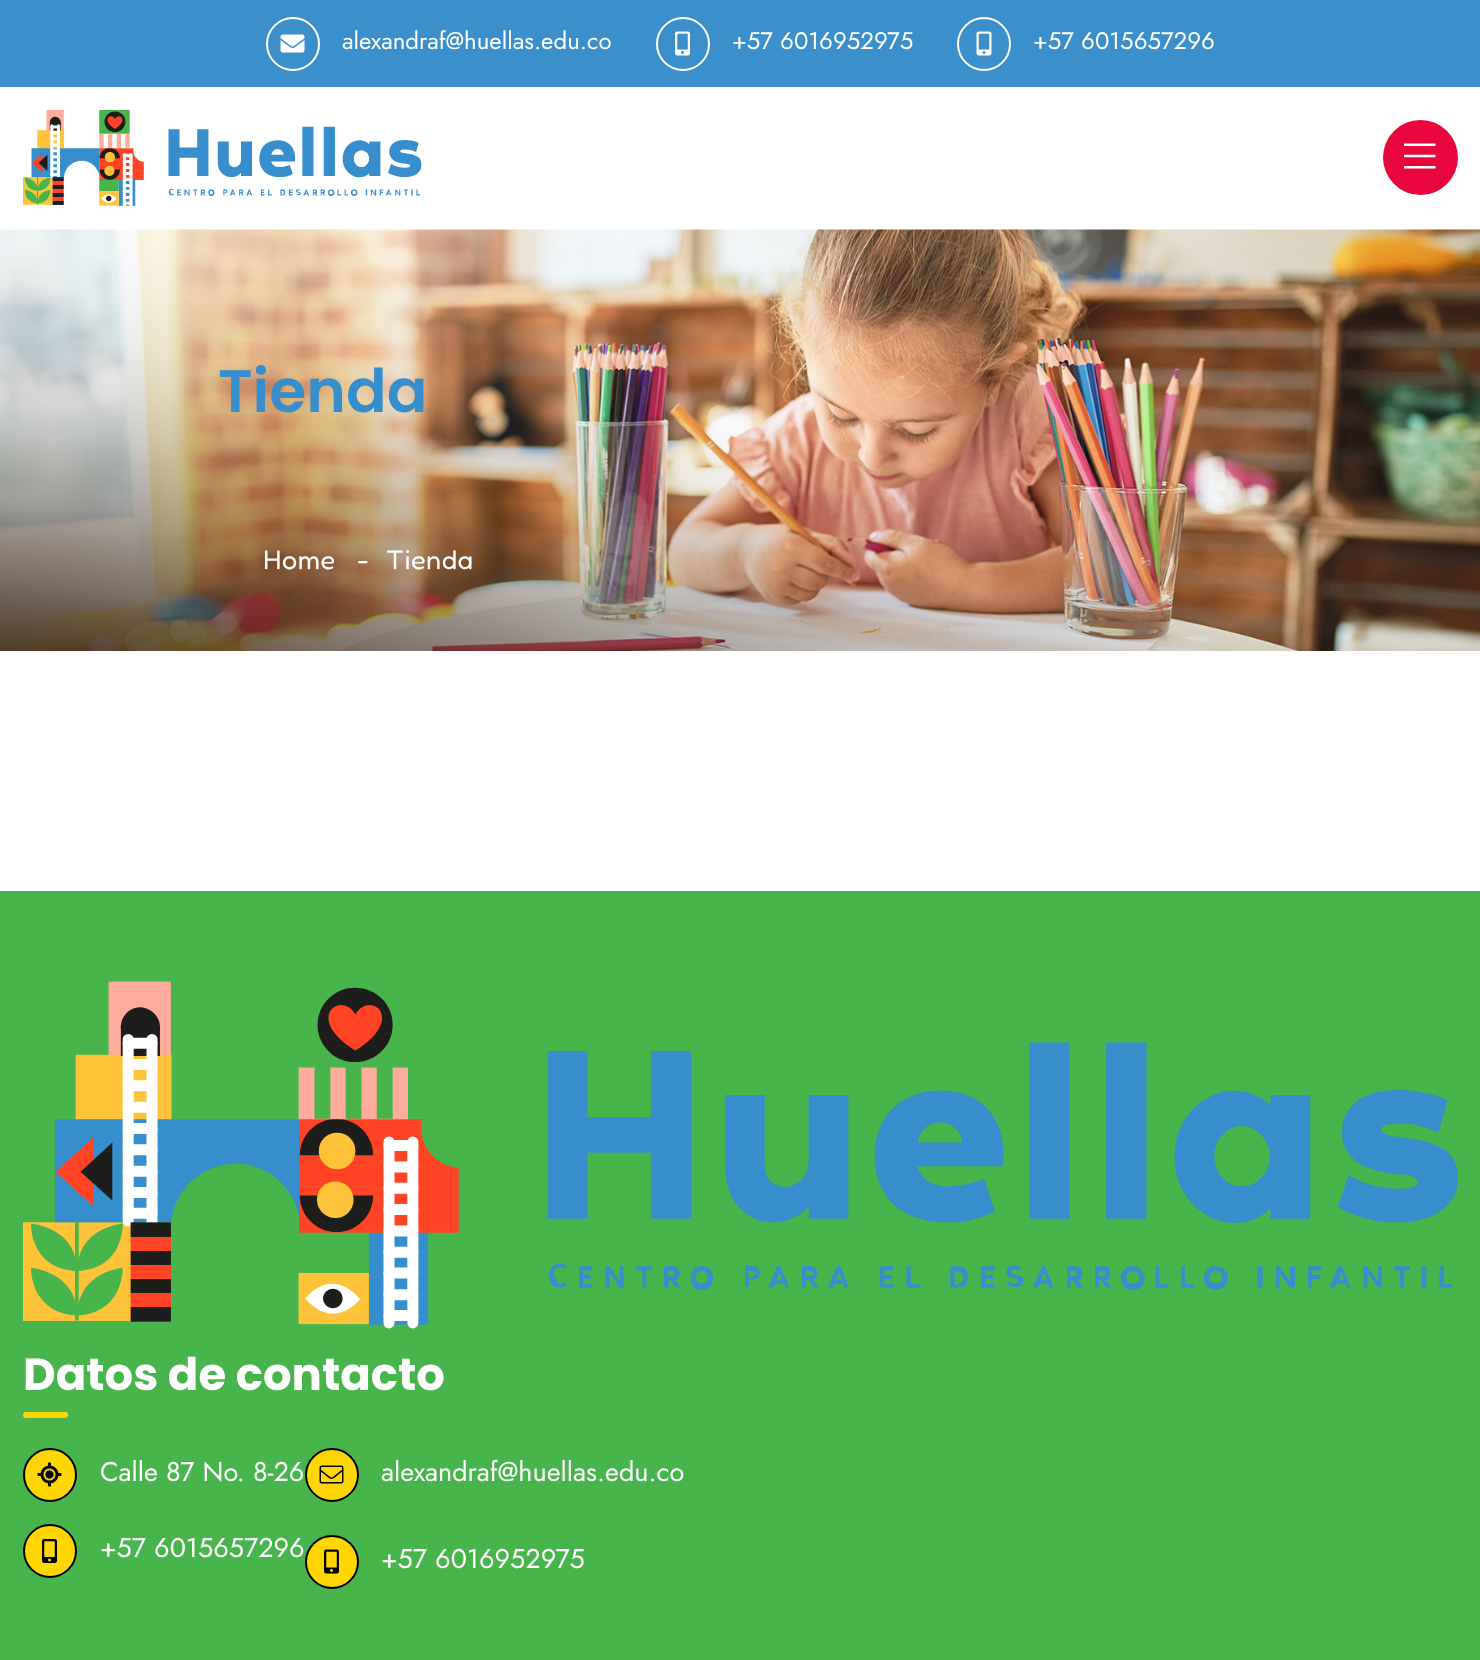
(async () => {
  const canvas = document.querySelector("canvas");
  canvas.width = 1480;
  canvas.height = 1660;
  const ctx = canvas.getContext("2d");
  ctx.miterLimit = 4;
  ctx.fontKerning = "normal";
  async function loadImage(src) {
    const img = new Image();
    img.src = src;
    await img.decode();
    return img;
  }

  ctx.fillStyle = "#ffffff";
  ctx.fillRect(0, 0, 1480, 1660);
  ctx.fillStyle = "#3b8fcb";
  ctx.fillRect(0, 0, 1480, 87);
  ctx.beginPath();
  ctx.arc(293, 44, 26, 0, Math.PI * 2);
  ctx.strokeStyle = "#ffffff";
  ctx.lineWidth = 2;
  ctx.stroke();
  ctx.drawImage(await loadImage("img/1.png"), 280, 34, 25, 19);
  ctx.beginPath();
  ctx.arc(683, 44, 26, 0, Math.PI * 2);
  ctx.stroke();
  ctx.drawImage(await loadImage("img/2.png"), 675, 31, 15, 25);
  ctx.beginPath();
  ctx.arc(984, 44, 26, 0, Math.PI * 2);
  ctx.stroke();
  ctx.drawImage(await loadImage("img/3.png"), 976, 31, 16, 25);
  ctx.drawImage(await loadImage("img/4.png"), 23, 110, 399, 96);
  ctx.fillStyle = "#e8063c";
  ctx.beginPath();
  ctx.arc(1420.5, 157.5, 37.5, 0, Math.PI * 2);
  ctx.fill();
  ctx.drawImage(await loadImage("img/5.png"), 1404, 143, 32, 26);
  ctx.drawImage(await loadImage("img/6.png"), 0, 229, 1480, 422);
  ctx.fillStyle = "#47b54c";
  ctx.fillRect(0, 891, 1480, 769);
  ctx.drawImage(await loadImage("img/7.png"), 23, 981, 1435, 348);
  ctx.fillStyle = "#ffd600";
  ctx.beginPath();
  ctx.roundRect(23, 1412, 45, 6, 3);
  ctx.fill();
  ctx.beginPath();
  ctx.arc(50, 1475, 26, 0, Math.PI * 2);
  ctx.fill();
  ctx.strokeStyle = "#000000";
  ctx.stroke();
  ctx.drawImage(await loadImage("img/8.png"), 37, 1462, 25, 25);
  ctx.beginPath();
  ctx.arc(332, 1475, 26, 0, Math.PI * 2);
  ctx.fill();
  ctx.stroke();
  ctx.drawImage(await loadImage("img/9.png"), 319, 1465, 25, 19);
  ctx.beginPath();
  ctx.arc(50, 1551, 26, 0, Math.PI * 2);
  ctx.fill();
  ctx.stroke();
  ctx.drawImage(await loadImage("img/10.png"), 42, 1539, 15, 24);
  ctx.beginPath();
  ctx.arc(332, 1562, 26, 0, Math.PI * 2);
  ctx.fill();
  ctx.stroke();
  ctx.drawImage(await loadImage("img/11.png"), 324, 1549, 15, 25);
  ctx.font = "24px Jost";
  ctx.fillStyle = "#ffffff";
  for (const [text, x, y] of [
    ["alexandraf@huellas.edu.co", 342, 49],
    ["+57 6016952975", 732, 49],
    ["+57 6015657296", 1033, 49],
  ]) {
    ctx.fillText(text, x, y);
  }
  ctx.font = "600 60px Poppins";
  ctx.fillStyle = "#368ecd";
  ctx.fillText("Tienda", 218, 412);
  ctx.letterSpacing = "0.5px";
  ctx.font = "27px Fredoka";
  ctx.fillStyle = "#ffffff";
  for (const [text, x, y] of [
    ["Home", 263, 569],
    ["-", 358, 569],
    ["Tienda", 386, 569],
  ]) {
    ctx.fillText(text, x, y);
  }
  ctx.letterSpacing = "0px";
  ctx.font = "bold 45px Poppins";
  ctx.fillText("Datos de contacto", 23, 1390);
  ctx.font = "27px Jost";
  for (const [text, x, y] of [
    ["Calle 87 No. 8-26", 100, 1481],
    ["alexandraf@huellas.edu.co", 381, 1481],
    ["+57 6015657296", 100, 1557],
    ["+57 6016952975", 381, 1568],
  ]) {
    ctx.fillText(text, x, y);
  }
})();
